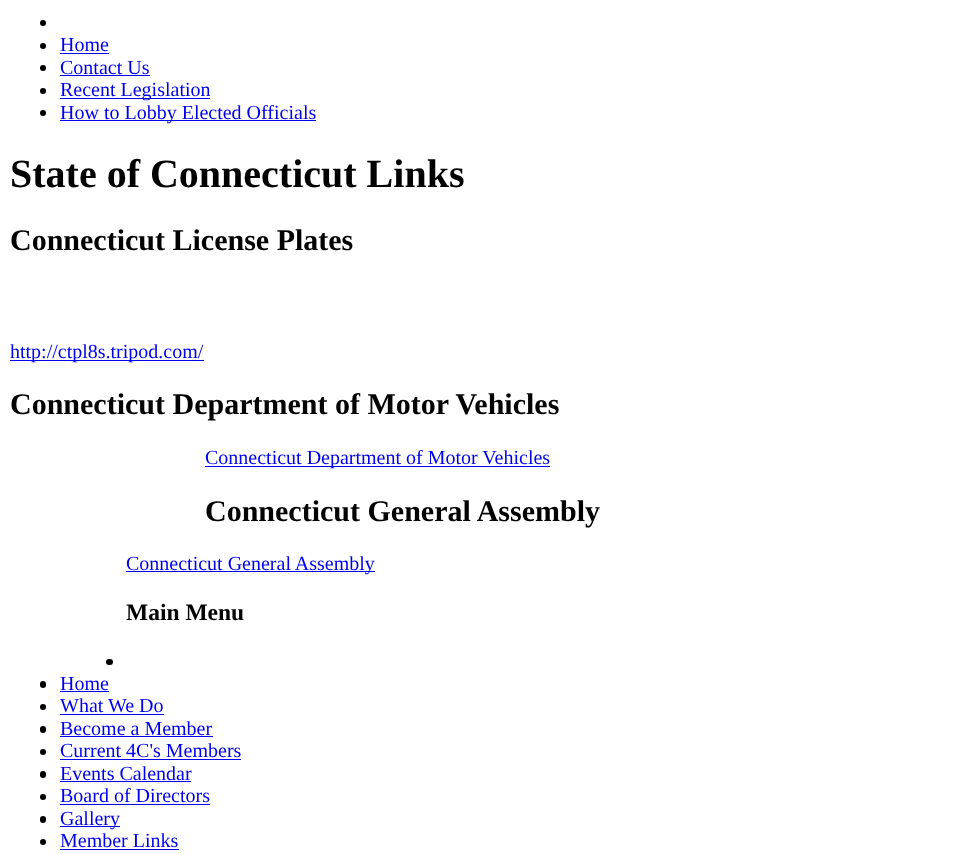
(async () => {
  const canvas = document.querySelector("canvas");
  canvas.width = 954;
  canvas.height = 854;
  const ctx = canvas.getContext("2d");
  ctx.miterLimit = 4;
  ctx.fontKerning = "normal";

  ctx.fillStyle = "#ffffff";
  ctx.fillRect(0, 0, 954, 854);
  ctx.fillStyle = "#000000";
  ctx.beginPath();
  ctx.arc(43, 23, 3, 0, Math.PI * 2);
  ctx.fill();
  ctx.beginPath();
  ctx.arc(43, 46, 3, 0, Math.PI * 2);
  ctx.fill();
  ctx.fillStyle = "#0000ee";
  ctx.fillRect(60, 53, 49, 1);
  ctx.fillStyle = "#000000";
  ctx.beginPath();
  ctx.arc(43, 68, 3, 0, Math.PI * 2);
  ctx.fill();
  ctx.fillStyle = "#0000ee";
  ctx.fillRect(60, 75, 90, 1);
  ctx.fillStyle = "#000000";
  ctx.beginPath();
  ctx.arc(43, 91, 3, 0, Math.PI * 2);
  ctx.fill();
  ctx.fillStyle = "#0000ee";
  ctx.fillRect(60, 98, 150, 1);
  ctx.fillStyle = "#000000";
  ctx.beginPath();
  ctx.arc(43, 113, 3, 0, Math.PI * 2);
  ctx.fill();
  for (const [x, y, w, h, color] of [
    [60, 120, 256, 1, "#0000ee"],
    [10, 360, 194, 1, "#0000ee"],
    [205, 466, 345, 1, "#0000ee"],
    [126, 571, 249, 1, "#0000ee"],
  ]) {
    ctx.fillStyle = color;
    ctx.fillRect(x, y, w, h);
  }
  ctx.fillStyle = "#000000";
  ctx.beginPath();
  ctx.roundRect(106, 659, 7, 6, 3);
  ctx.fill();
  ctx.beginPath();
  ctx.roundRect(40, 681, 6, 7, 3);
  ctx.fill();
  ctx.fillStyle = "#0000ee";
  ctx.fillRect(60, 691, 49, 1);
  ctx.fillStyle = "#000000";
  ctx.beginPath();
  ctx.arc(43, 707, 3, 0, Math.PI * 2);
  ctx.fill();
  ctx.fillStyle = "#0000ee";
  ctx.fillRect(60, 714, 104, 1);
  ctx.fillStyle = "#000000";
  ctx.beginPath();
  ctx.roundRect(40, 726, 6, 7, 3);
  ctx.fill();
  ctx.fillStyle = "#0000ee";
  ctx.fillRect(60, 736, 153, 1);
  ctx.fillStyle = "#000000";
  ctx.beginPath();
  ctx.arc(43, 752, 3, 0, Math.PI * 2);
  ctx.fill();
  ctx.fillStyle = "#0000ee";
  ctx.fillRect(60, 759, 181, 1);
  ctx.fillStyle = "#000000";
  ctx.beginPath();
  ctx.roundRect(40, 771, 6, 7, 3);
  ctx.fill();
  ctx.fillStyle = "#0000ee";
  ctx.fillRect(60, 781, 131, 1);
  ctx.fillStyle = "#000000";
  ctx.beginPath();
  ctx.arc(43, 797, 3, 0, Math.PI * 2);
  ctx.fill();
  ctx.fillStyle = "#0000ee";
  ctx.fillRect(60, 804, 150, 1);
  ctx.fillStyle = "#000000";
  ctx.beginPath();
  ctx.roundRect(40, 816, 6, 7, 3);
  ctx.fill();
  ctx.fillStyle = "#0000ee";
  ctx.fillRect(60, 826, 60, 1);
  ctx.fillStyle = "#000000";
  ctx.beginPath();
  ctx.arc(43, 842, 3, 0, Math.PI * 2);
  ctx.fill();
  ctx.fillStyle = "#0000ee";
  ctx.fillRect(60, 849, 119, 1);
  ctx.font = "20px Liberation Serif";
  for (const [text, x, y] of [
    ["Home", 60, 51],
    ["Contact Us", 60, 74],
    ["Recent Legislation", 60, 96],
    ["How to Lobby Elected Officials", 60, 119],
  ]) {
    ctx.fillText(text, x, y);
  }
  ctx.font = "bold 40px Liberation Serif";
  ctx.fillStyle = "#000000";
  ctx.fillText("State of Connecticut Links", 10, 187);
  ctx.font = "bold 30px Liberation Serif";
  ctx.fillText("Connecticut License Plates", 10, 250);
  ctx.font = "20px Liberation Serif";
  ctx.fillStyle = "#0000ee";
  ctx.fillText("http://ctpl8s.tripod.com/", 10, 358);
  ctx.font = "bold 30px Liberation Serif";
  ctx.fillStyle = "#000000";
  ctx.fillText("Connecticut Department of Motor Vehicles", 10, 414);
  ctx.font = "20px Liberation Serif";
  ctx.fillStyle = "#0000ee";
  ctx.fillText("Connecticut Department of Motor Vehicles", 205, 464);
  ctx.font = "bold 30px Liberation Serif";
  ctx.fillStyle = "#000000";
  ctx.fillText("Connecticut General Assembly", 205, 521);
  ctx.font = "20px Liberation Serif";
  ctx.fillStyle = "#0000ee";
  ctx.fillText("Connecticut General Assembly", 126, 570);
  ctx.font = "bold 23.5px Liberation Serif";
  ctx.fillStyle = "#000000";
  ctx.fillText("Main Menu", 126, 620);
  ctx.font = "20px Liberation Serif";
  ctx.fillStyle = "#0000ee";
  for (const [text, x, y] of [
    ["Home", 60, 690],
    ["What We Do", 60, 712],
    ["Become a Member", 60, 735],
    ["Current 4C's Members", 60, 757],
    ["Events Calendar", 60, 780],
    ["Board of Directors", 60, 802],
    ["Gallery", 60, 825],
    ["Member Links", 60, 847],
  ]) {
    ctx.fillText(text, x, y);
  }
})();
